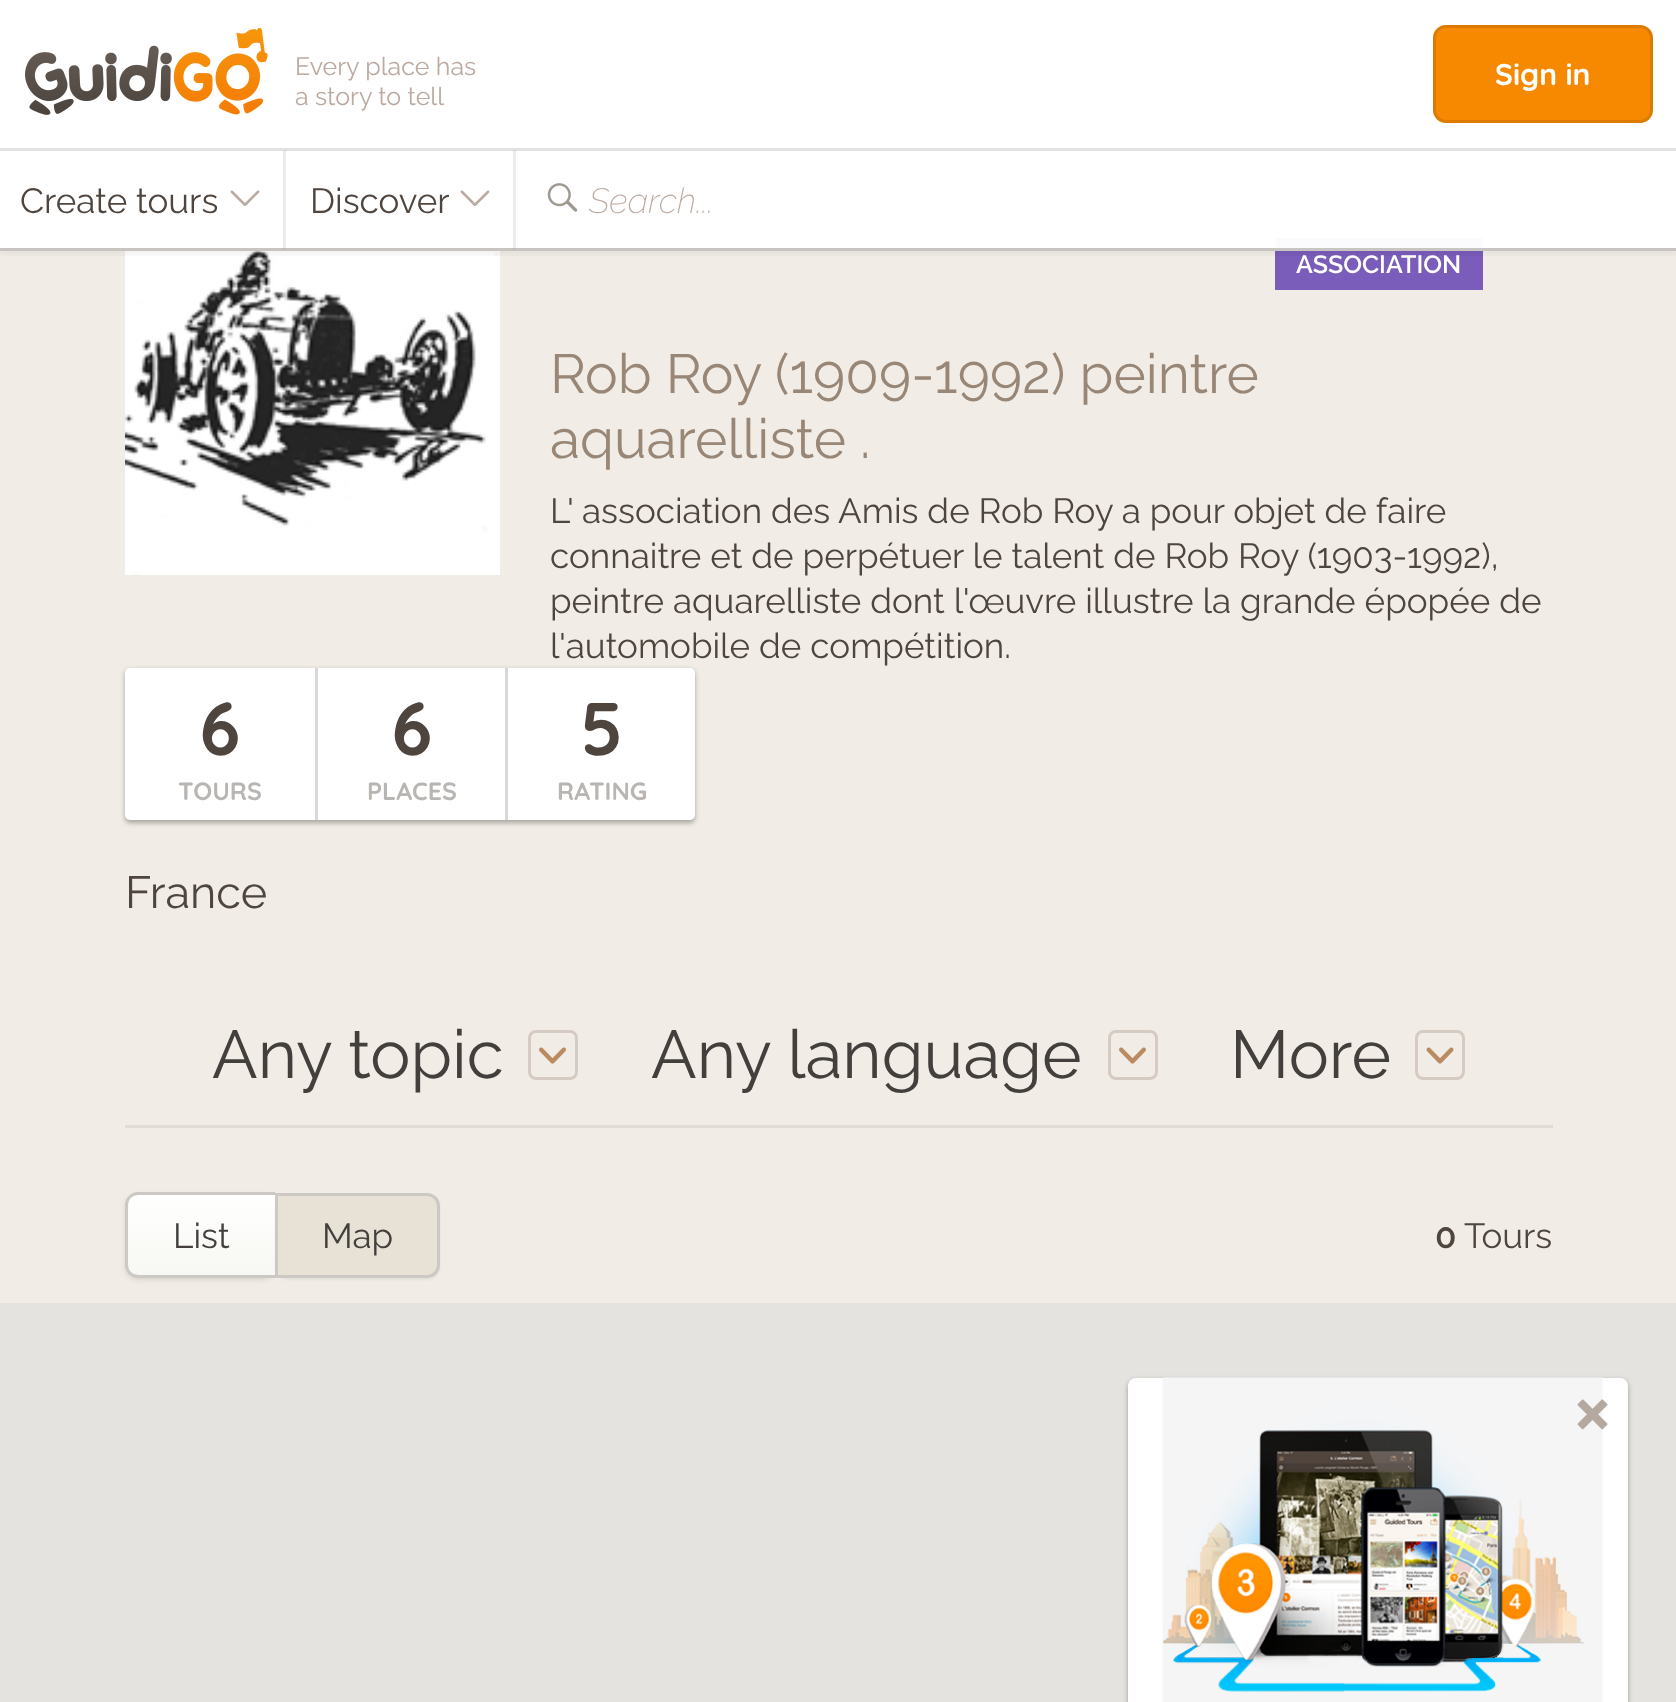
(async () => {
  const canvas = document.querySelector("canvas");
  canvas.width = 1676;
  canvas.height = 1702;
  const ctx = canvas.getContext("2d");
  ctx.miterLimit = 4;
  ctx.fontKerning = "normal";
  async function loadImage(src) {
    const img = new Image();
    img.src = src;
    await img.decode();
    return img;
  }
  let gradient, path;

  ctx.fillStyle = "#f1ede6";
  ctx.fillRect(0, 0, 1676, 1702);
  ctx.drawImage(await loadImage("img/5.png"), 125, 200, 375, 375);
  ctx.fillStyle = "#7a5cba";
  ctx.fillRect(1275, 238, 208, 52);
  ctx.save();
  ctx.beginPath();
  ctx.rect(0, 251, 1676, 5);
  ctx.clip();
  ctx.fillStyle = "rgba(0, 0, 0, 0.07)";
  ctx.filter = "blur(6px)";
  ctx.beginPath();
  ctx.rect(0, 3, 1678, 250);
  ctx.fill();
  ctx.filter = "none";
  ctx.restore();
  for (const [x, y, w, h, color] of [
    [0, 0, 1676, 248, "rgba(255, 255, 255, 0.97)"],
    [0, 248, 1676, 3, "#c8c4c1"],
    [0, 148, 1676, 3, "#e2e2e2"],
  ]) {
    ctx.fillStyle = color;
    ctx.fillRect(x, y, w, h);
  }
  ctx.drawImage(await loadImage("img/1.png"), 25, 28, 243, 87);
  ctx.drawImage(await loadImage("img/2.png"), 230, 190, 30, 17);
  ctx.fillStyle = "rgba(187, 170, 160, 0.25)";
  ctx.fillRect(283, 150, 3, 100);
  ctx.drawImage(await loadImage("img/3.png"), 460, 190, 30, 17);
  ctx.fillRect(513, 150, 3, 100);
  ctx.drawImage(await loadImage("img/4.png"), 547, 183, 31, 29);
  ctx.fillStyle = "#f78901";
  ctx.beginPath();
  ctx.roundRect(1433, 25, 220, 98, 13);
  ctx.fill();
  ctx.beginPath();
  ctx.roundRect(1434.5, 26.5, 217, 95, 11.5);
  ctx.strokeStyle = "rgba(0, 0, 0, 0.1)";
  ctx.lineWidth = 3;
  ctx.stroke();
  ctx.fillStyle = "rgba(0, 0, 0, 0.3)";
  ctx.filter = "blur(2.5px)";
  ctx.beginPath();
  ctx.roundRect(125, 670, 570, 153, 5);
  ctx.fill();
  ctx.filter = "none";
  ctx.fillStyle = "#ffffff";
  ctx.beginPath();
  ctx.roundRect(125, 668, 570, 152, 5);
  ctx.fill();
  for (const [x, y, w, h, color] of [
    [315, 668, 3, 152, "#dbd9d8"],
    [505, 668, 3, 152, "#dbd9d8"],
    [125, 1125, 1428, 3, "#e0dcd6"],
  ]) {
    ctx.fillStyle = color;
    ctx.fillRect(x, y, w, h);
  }
  ctx.beginPath();
  ctx.roundRect(529.5, 1031.5, 47, 47, 6.5);
  ctx.strokeStyle = "#d6cbc3";
  ctx.stroke();
  ctx.drawImage(await loadImage("img/6.png"), 539, 1047, 27, 17);
  ctx.beginPath();
  ctx.roundRect(1109.5, 1031.5, 47, 47, 6.5);
  ctx.stroke();
  ctx.drawImage(await loadImage("img/6.png"), 1119, 1047, 27, 17);
  ctx.beginPath();
  ctx.roundRect(1416.5, 1031.5, 47, 47, 6.5);
  ctx.stroke();
  ctx.drawImage(await loadImage("img/7.png"), 1426, 1047, 28, 17);
  ctx.fillStyle = "rgba(0, 0, 0, 0.1)";
  ctx.filter = "blur(2.5px)";
  ctx.beginPath();
  ctx.roundRect(125, 1195, 150, 85, 13);
  ctx.fill();
  ctx.filter = "none";
  gradient = ctx.createLinearGradient(201, 1275, 201, 1195);
  gradient.addColorStop(0, "#f7f7f3");
  gradient.addColorStop(1, "#ffffff");
  ctx.fillStyle = gradient;
  ctx.beginPath();
  ctx.roundRect(128, 1195, 147, 80, [10, 0, 0, 10]);
  ctx.fill();
  ctx.fillStyle = "#ccc8c3";
  path = new Path2D("M138 1192H275V1278H138C131 1278 125 1272 125 1265V1205C125 1198 131 1192 138 1192ZM138 1195H275V1275H138C132 1275 128 1271 128 1265V1205C128 1199 132 1195 138 1195Z");
  ctx.fill(path, "evenodd");
  ctx.fillStyle = "rgba(0, 0, 0, 0.05)";
  ctx.filter = "blur(1px)";
  ctx.beginPath();
  ctx.roundRect(275, 1195, 165, 85, 13);
  ctx.fill();
  ctx.filter = "none";
  ctx.fillStyle = "#e8e1d6";
  ctx.beginPath();
  ctx.roundRect(276.5, 1194.5, 162, 82, [0, 11.5, 11.5, 0]);
  ctx.fill();
  ctx.strokeStyle = "#ccc8c3";
  ctx.stroke();
  ctx.fillStyle = "#e5e3df";
  ctx.fillRect(0, 1303, 1676, 399);
  ctx.fillStyle = "rgba(0, 0, 0, 0.3)";
  ctx.filter = "blur(2.5px)";
  ctx.beginPath();
  ctx.roundRect(1128, 1380, 500, 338, 8);
  ctx.fill();
  ctx.filter = "none";
  ctx.fillStyle = "#ffffff";
  ctx.beginPath();
  ctx.roundRect(1128, 1378, 500, 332, 8);
  ctx.fill();
  ctx.drawImage(await loadImage("img/8.png"), 1162, 1377, 441, 325);
  ctx.drawImage(await loadImage("img/9.png"), 1577, 1399, 31, 31);
  ctx.font = "25px Raleway";
  ctx.fillStyle = "#bbaaa0";
  ctx.fillText("Every place has", 295, 75);
  ctx.fillText("a story to tell", 295, 105);
  ctx.font = "35px Raleway";
  ctx.fillStyle = "#4f453f";
  ctx.fillText("Create tours", 20, 213);
  ctx.fillText("Discover", 310, 213);
  ctx.font = "italic 100 35px Raleway";
  ctx.fillStyle = "#bbaaa0";
  ctx.fillText("Search...", 589, 213);
  ctx.font = "300 30px Quicksand";
  ctx.fillStyle = "#ffffff";
  ctx.fillText("Sign in", 1495, 85);
  ctx.font = "600 25px Raleway";
  ctx.fillText("ASSOCIATION", 1296, 273);
  ctx.font = "55px Raleway";
  ctx.fillStyle = "#988676";
  ctx.fillText("Rob Roy (1909-1992) peintre", 550, 393);
  ctx.fillText("aquarelliste .", 550, 458);
  ctx.font = "35px Raleway";
  ctx.fillStyle = "#4f453f";
  for (const [text, x, y] of [
    ["L' association des Amis de Rob Roy a pour objet de faire", 550, 523],
    ["connaitre et de perpétuer le talent de Rob Roy (1903-1992),", 550, 568],
    ["peintre aquarelliste dont l'œuvre illustre la grande épopée de", 550, 613],
    ["l'automobile de compétition.", 550, 658],
  ]) {
    ctx.fillText(text, x, y);
  }
  ctx.font = "300 75px Quicksand";
  ctx.fillText("6", 199, 755);
  ctx.font = "300 25px Quicksand";
  ctx.fillStyle = "#b9b5b2";
  ctx.fillText("TOURS", 178, 800);
  ctx.font = "300 75px Quicksand";
  ctx.fillStyle = "#4f453f";
  ctx.fillText("6", 391, 755);
  ctx.font = "300 25px Quicksand";
  ctx.fillStyle = "#b9b5b2";
  ctx.fillText("PLACES", 367, 800);
  ctx.font = "300 75px Quicksand";
  ctx.fillStyle = "#4f453f";
  ctx.fillText("5", 580, 755);
  ctx.font = "300 25px Quicksand";
  ctx.fillStyle = "#b9b5b2";
  ctx.fillText("RATING", 557, 800);
  ctx.font = "45px Raleway";
  ctx.fillStyle = "#4f453f";
  ctx.fillText("France", 125, 908);
  ctx.font = "67.5px Raleway";
  ctx.fillStyle = "#423f3c";
  for (const [text, x, y] of [
    ["Any topic", 212, 1078],
    ["Any language", 651, 1078],
    ["More", 1230, 1078],
  ]) {
    ctx.fillText(text, x, y);
  }
  ctx.font = "35px Raleway";
  ctx.fillText("List", 173, 1248);
  ctx.fillText("Map", 322, 1248);
  ctx.font = "600 35px Raleway";
  ctx.fillStyle = "#4f453f";
  ctx.fillText("0", 1435, 1248);
  ctx.font = "35px Raleway";
  ctx.fillText("Tours", 1464, 1248);
})();
